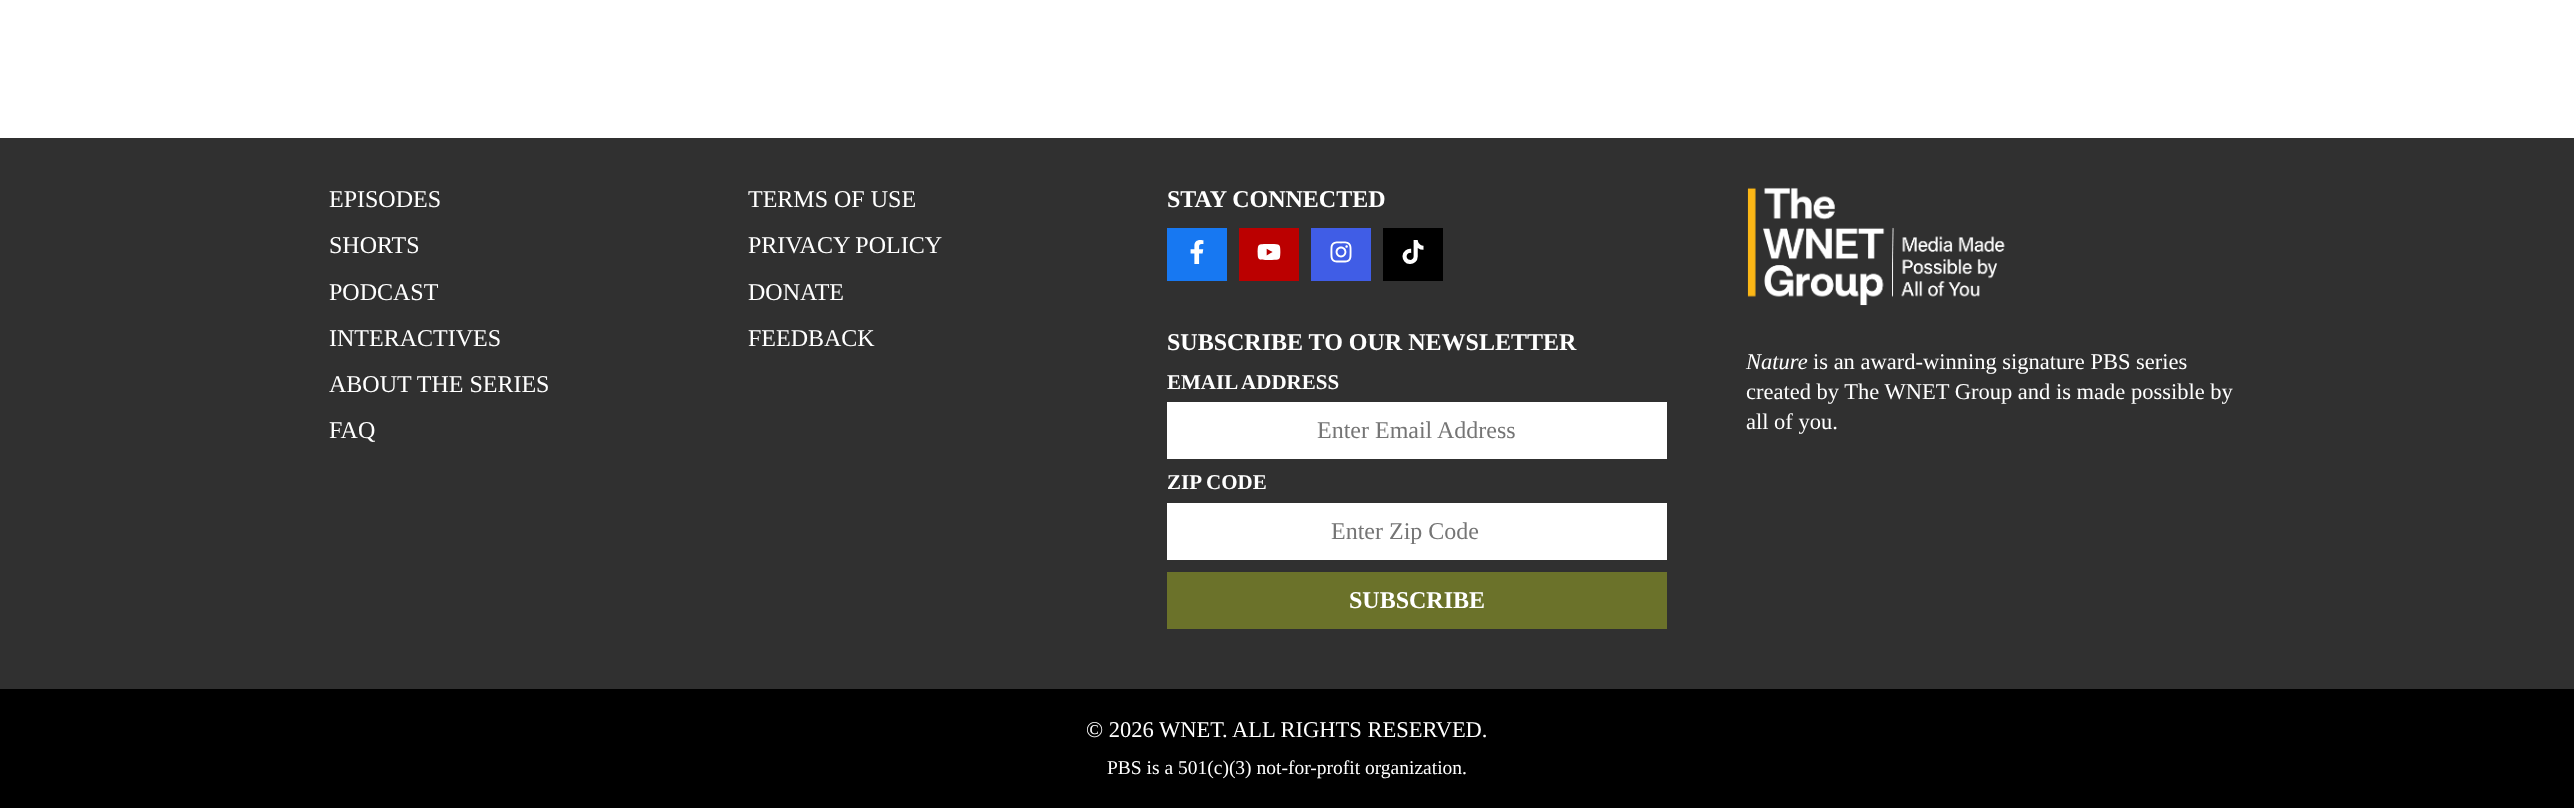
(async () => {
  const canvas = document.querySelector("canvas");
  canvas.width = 2574;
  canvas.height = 808;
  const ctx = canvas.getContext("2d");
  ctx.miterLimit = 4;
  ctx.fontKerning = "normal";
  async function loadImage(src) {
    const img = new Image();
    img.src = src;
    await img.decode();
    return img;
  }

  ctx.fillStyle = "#ffffff";
  ctx.fillRect(0, 0, 2574, 808);
  ctx.fillStyle = "#303030";
  ctx.fillRect(0, 138, 2574, 551);
  ctx.fillStyle = "#1778f2";
  ctx.fillRect(1167, 228, 60, 53);
  ctx.drawImage(await loadImage("img/1.png"), 1190, 240, 14, 24);
  ctx.fillStyle = "#bb0000";
  ctx.fillRect(1239, 228, 60, 53);
  ctx.drawImage(await loadImage("img/2.png"), 1257, 244, 24, 16);
  ctx.fillStyle = "#405de6";
  ctx.fillRect(1311, 228, 60, 53);
  ctx.drawImage(await loadImage("img/3.png"), 1330, 241, 22, 22);
  ctx.fillStyle = "#000000";
  ctx.fillRect(1383, 228, 60, 53);
  ctx.drawImage(await loadImage("img/4.png"), 1402, 240, 22, 24);
  for (const [x, y, w, h, color] of [
    [1167, 402, 500, 57, "#ffffff"],
    [1167, 503, 500, 57, "#ffffff"],
    [1167, 572, 500, 57, "#6b722a"],
  ]) {
    ctx.fillStyle = color;
    ctx.fillRect(x, y, w, h);
  }
  ctx.drawImage(await loadImage("img/5.png"), 1747, 187, 258, 119);
  ctx.fillStyle = "#000000";
  ctx.fillRect(0, 689, 2574, 119);
  ctx.font = "24px Liberation Serif";
  ctx.fillStyle = "#ffffff";
  for (const [text, x, y] of [
    ["EPISODES", 329, 207],
    ["SHORTS", 329, 253],
    ["PODCAST", 329, 300],
    ["INTERACTIVES", 329, 346],
    ["ABOUT THE SERIES", 329, 392],
    ["FAQ", 329, 438],
    ["TERMS OF USE", 748, 207],
    ["PRIVACY POLICY", 748, 253],
    ["DONATE", 748, 300],
    ["FEEDBACK", 748, 346],
  ]) {
    ctx.fillText(text, x, y);
  }
  ctx.font = "bold 24px Liberation Serif";
  ctx.fillText("STAY CONNECTED", 1167, 207);
  ctx.fillText("SUBSCRIBE TO OUR NEWSLETTER", 1167, 350);
  ctx.font = "bold 21px Liberation Serif";
  ctx.fillText("EMAIL ADDRESS", 1167, 389);
  ctx.font = "24px Liberation Serif";
  ctx.fillStyle = "#757575";
  ctx.fillText("Enter Email Address", 1317, 438);
  ctx.font = "bold 21px Liberation Serif";
  ctx.fillStyle = "#ffffff";
  ctx.fillText("ZIP CODE", 1167, 489);
  ctx.font = "24px Liberation Serif";
  ctx.fillStyle = "#757575";
  ctx.fillText("Enter Zip Code", 1331, 539);
  ctx.font = "bold 24px Liberation Serif";
  ctx.fillStyle = "#ffffff";
  ctx.fillText("SUBSCRIBE", 1349, 608);
  ctx.font = "italic 22.5px Liberation Serif";
  ctx.fillText("Nature", 1746, 369);
  ctx.font = "22.5px Liberation Serif";
  for (const [text, x, y] of [
    ["is an award-winning signature PBS series", 1813, 369],
    ["created by The WNET Group and is made possible by", 1746, 399],
    ["all of you.", 1746, 429],
    ["© 2026", 1086, 737],
    ["WNET", 1159, 737],
    [". ALL RIGHTS RESERVED.", 1222, 737],
  ]) {
    ctx.fillText(text, x, y);
  }
  ctx.font = "19.5px Liberation Serif";
  ctx.fillText("PBS is a 501(c)(3) not-for-profit organization.", 1107, 774);
})();
